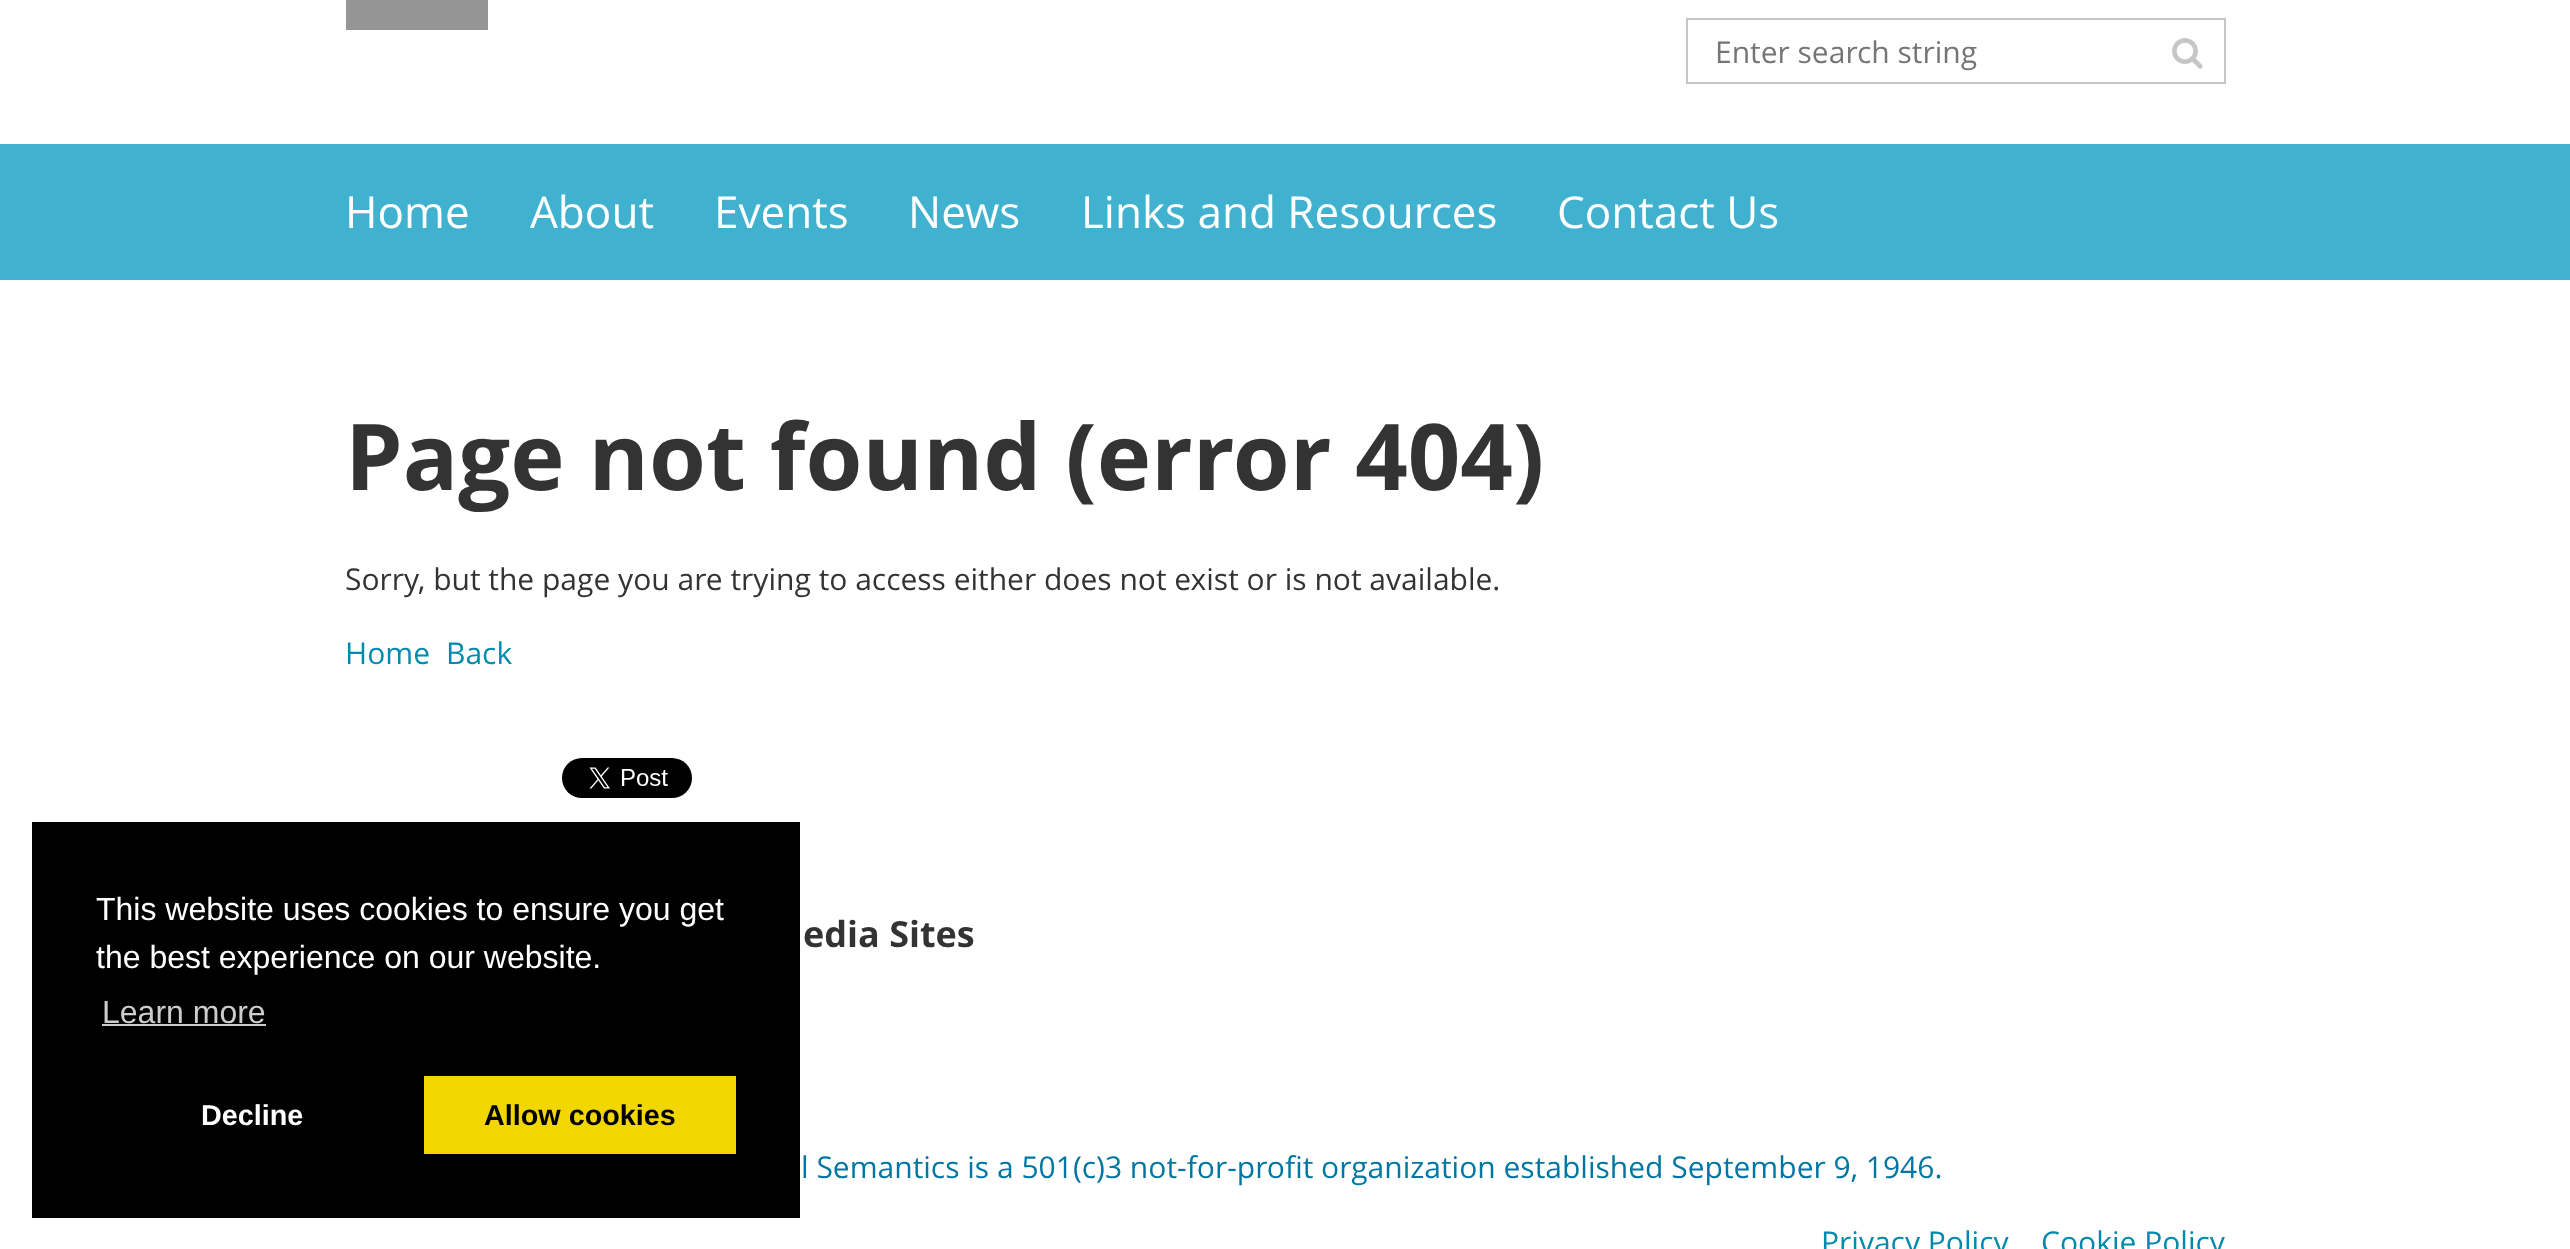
(async () => {
  const canvas = document.querySelector("canvas");
  canvas.width = 2570;
  canvas.height = 1249;
  const ctx = canvas.getContext("2d");
  ctx.miterLimit = 4;
  ctx.fontKerning = "normal";
  async function loadImage(src) {
    const img = new Image();
    img.src = src;
    await img.decode();
    return img;
  }

  ctx.fillStyle = "#ffffff";
  ctx.fillRect(0, 0, 2570, 1249);
  ctx.fillStyle = "#959595";
  ctx.fillRect(346, 0, 142, 30);
  ctx.strokeStyle = "#c6c6c6";
  ctx.lineWidth = 2;
  ctx.strokeRect(1687, 19, 538, 64);
  ctx.drawImage(await loadImage("img/1.png"), 2172, 38, 31, 31);
  ctx.fillStyle = "#40b2cf";
  ctx.fillRect(0, 144, 2570, 136);
  ctx.drawImage(await loadImage("img/2.png"), 562, 758, 130, 40);
  for (const [x, y, w, h, color] of [
    [32, 822, 768, 396, "#000000"],
    [102, 1024, 164, 2, "#cccccc"],
    [424, 1076, 312, 78, "#f1d600"],
  ]) {
    ctx.fillStyle = color;
    ctx.fillRect(x, y, w, h);
  }
  ctx.font = "30px Open Sans";
  ctx.fillStyle = "#757575";
  ctx.fillText("Enter search string", 1715, 63);
  ctx.font = "44px Open Sans";
  ctx.fillStyle = "#ffffff";
  for (const [text, x, y] of [
    ["Home", 345, 228],
    ["About", 530, 228],
    ["Events", 714, 228],
    ["News", 908, 228],
    ["Links and Resources", 1081, 228],
    ["Contact Us", 1557, 228],
  ]) {
    ctx.fillText(text, x, y);
  }
  ctx.font = "bold 92px Open Sans";
  ctx.fillStyle = "#333333";
  ctx.fillText("Page not found (error 404)", 345, 490);
  ctx.font = "30px Open Sans";
  ctx.fillText("Sorry, but the page you are trying to access either does not exist or is not available.", 345, 590);
  ctx.fillStyle = "#008bae";
  ctx.fillText("Home", 345, 664);
  ctx.fillText("Back", 446, 664);
  ctx.font = "bold 36px Open Sans";
  ctx.fillStyle = "#333333";
  ctx.fillText("edia Sites", 803, 947);
  ctx.font = "30px Open Sans";
  ctx.fillStyle = "#0076a3";
  ctx.fillText("l Semantics is a 501(c)3 not-for-profit organization established September 9, 1946.", 801, 1178);
  ctx.fillStyle = "#008bae";
  ctx.fillText("Privacy Policy", 1821, 1253);
  ctx.fillText("Cookie Policy", 2041, 1253);
  ctx.font = "32px Liberation Sans";
  ctx.fillStyle = "#ffffff";
  ctx.fillText("This website uses cookies to ensure you get", 96, 920);
  ctx.fillText("the best experience on our website.", 96, 968);
  ctx.fillStyle = "#cccccc";
  ctx.fillText("Learn more", 102, 1023);
  ctx.font = "bold 28.75px Liberation Sans";
  ctx.fillStyle = "#ffffff";
  ctx.fillText("Decline", 201, 1125);
  ctx.fillStyle = "#000000";
  ctx.fillText("Allow cookies", 484, 1125);
})();
